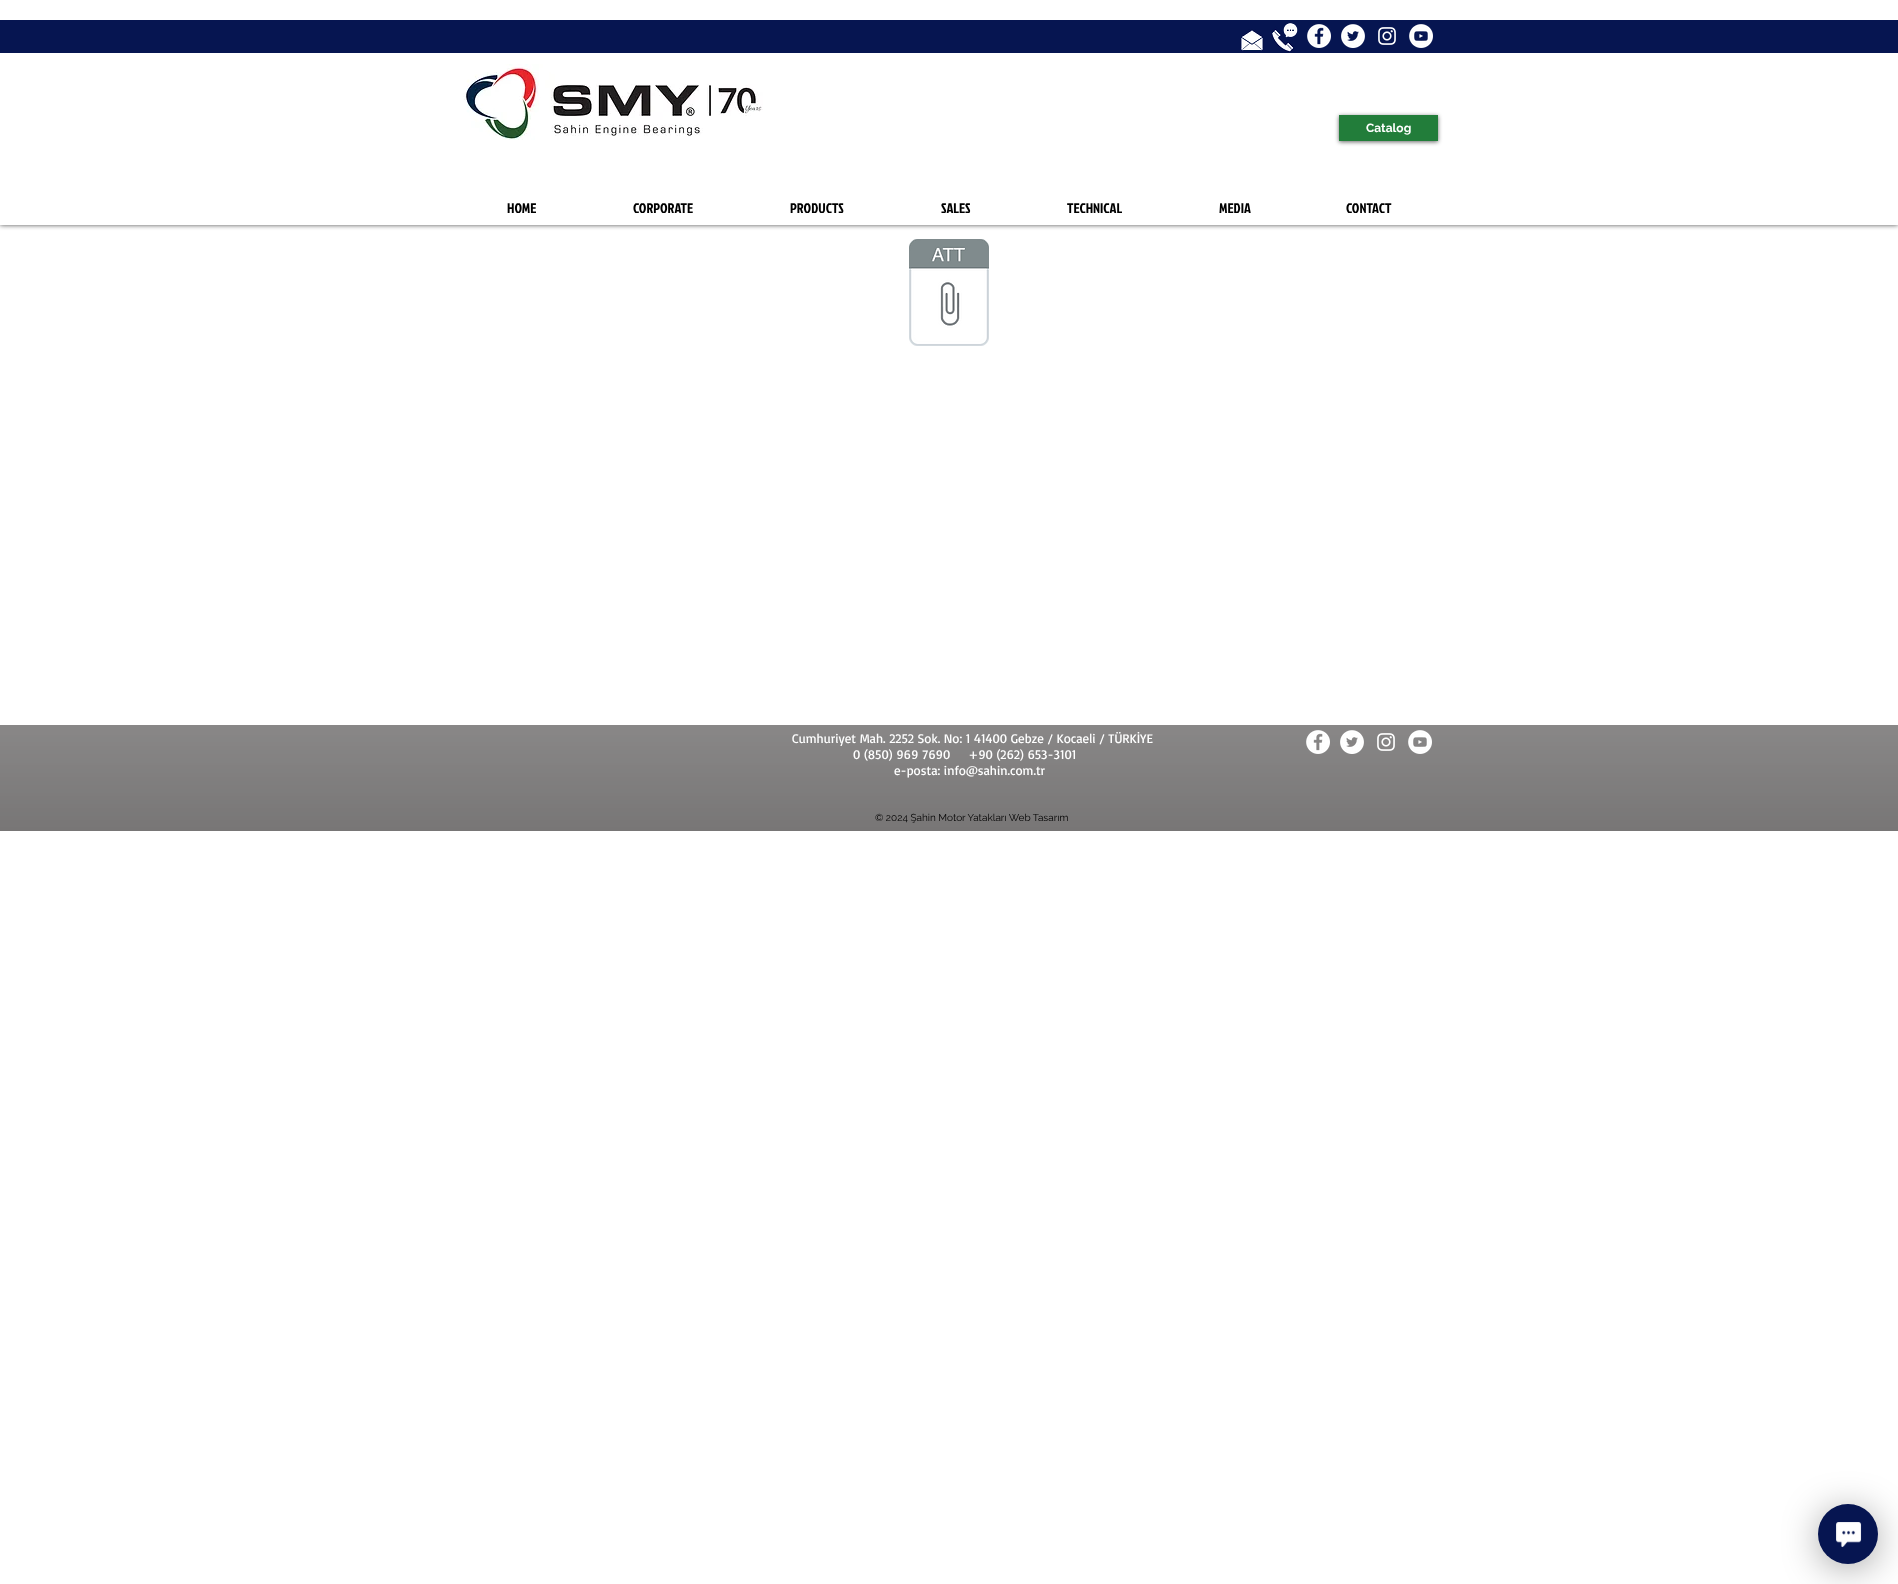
(async () => {
  const canvas = document.querySelector("canvas");
  canvas.width = 1898;
  canvas.height = 1584;
  const ctx = canvas.getContext("2d");
  ctx.miterLimit = 4;
  ctx.fontKerning = "normal";
  async function loadImage(src) {
    const img = new Image();
    img.src = src;
    await img.decode();
    return img;
  }

  ctx.fillStyle = "#ffffff";
  ctx.fillRect(0, 0, 1898, 1584);
  ctx.fillStyle = "rgba(0, 0, 0, 0.7)";
  ctx.filter = "blur(2.5px)";
  ctx.beginPath();
  ctx.rect(0, 0, 1898, 225);
  ctx.fill();
  ctx.filter = "none";
  ctx.fillStyle = "#ffffff";
  ctx.fillRect(0, 0, 1898, 225);
  ctx.fillStyle = "#061551";
  ctx.fillRect(0, 20, 1898, 33);
  ctx.drawImage(await loadImage("img/1.png"), 1240, 29, 24, 22);
  ctx.drawImage(await loadImage("img/2.png"), 1271, 22, 27, 31);
  ctx.drawImage(await loadImage("img/3.png"), 1307, 24, 24, 24);
  ctx.drawImage(await loadImage("img/4.png"), 1341, 24, 24, 24);
  ctx.drawImage(await loadImage("img/5.png"), 1378, 27, 18, 18);
  ctx.drawImage(await loadImage("img/6.png"), 1409, 24, 24, 24);
  ctx.drawImage(await loadImage("img/7.png"), 463, 64, 300, 76);
  ctx.fillStyle = "rgba(0, 0, 0, 0.6)";
  ctx.filter = "blur(2px)";
  ctx.beginPath();
  ctx.rect(1339, 116, 99, 26);
  ctx.fill();
  ctx.filter = "none";
  ctx.fillStyle = "#227d3a";
  ctx.fillRect(1339, 115, 99, 26);
  ctx.drawImage(await loadImage("img/8.png"), 909, 239, 80, 107);
  ctx.fillStyle = "#605e5e";
  ctx.fillRect(0, 725, 1898, 106);
  ctx.drawImage(await loadImage("img/9.png"), 0, 725, 1898, 106);
  ctx.drawImage(await loadImage("img/10.png"), 1306, 730, 24, 24);
  ctx.drawImage(await loadImage("img/11.png"), 1340, 730, 24, 24);
  ctx.drawImage(await loadImage("img/12.png"), 1377, 733, 18, 18);
  ctx.drawImage(await loadImage("img/13.png"), 1408, 730, 24, 24);
  ctx.fillStyle = "rgba(0, 0, 0, 0.5)";
  ctx.filter = "blur(20px)";
  ctx.beginPath();
  ctx.roundRect(1823, 1514, 50, 50, 25);
  ctx.fill();
  ctx.filter = "none";
  ctx.fillStyle = "#061551";
  ctx.beginPath();
  ctx.arc(1848, 1534, 30, 0, Math.PI * 2);
  ctx.fill();
  ctx.drawImage(await loadImage("img/14.png"), 1836, 1522, 26, 26);
  ctx.font = "bold 12px Raleway";
  ctx.fillStyle = "#ffffff";
  ctx.fillText("Catalog", 1366, 132);
  ctx.font = "14px Jockey One";
  ctx.fillStyle = "#000000";
  for (const [text, x, y] of [
    ["HOME", 507, 213],
    ["CORPORATE", 633, 213],
    ["PRODUCTS", 790, 213],
    ["SALES", 941, 213],
    ["TECHNICAL", 1067, 213],
    ["MEDIA", 1219, 213],
    ["CONTACT", 1346, 213],
  ]) {
    ctx.fillText(text, x, y);
  }
  ctx.font = "13px Basic";
  ctx.fillStyle = "#ffffff";
  for (const [text, x, y] of [
    ["Cumhuriyet Mah. 2252 Sok. No: 1 41400 Gebze / Kocaeli / TÜRKİYE", 792, 743],
    ["0 (850) 969 7690     +90 (262) 653-3101", 853, 759],
    ["e-posta: info@sahin.com.tr", 894, 775],
  ]) {
    ctx.fillText(text, x, y);
  }
  ctx.font = "10px Raleway";
  ctx.fillStyle = "#000000";
  ctx.fillText("© 2024 Şahin Motor Yatakları Web Tasarım", 875, 821);
})();
